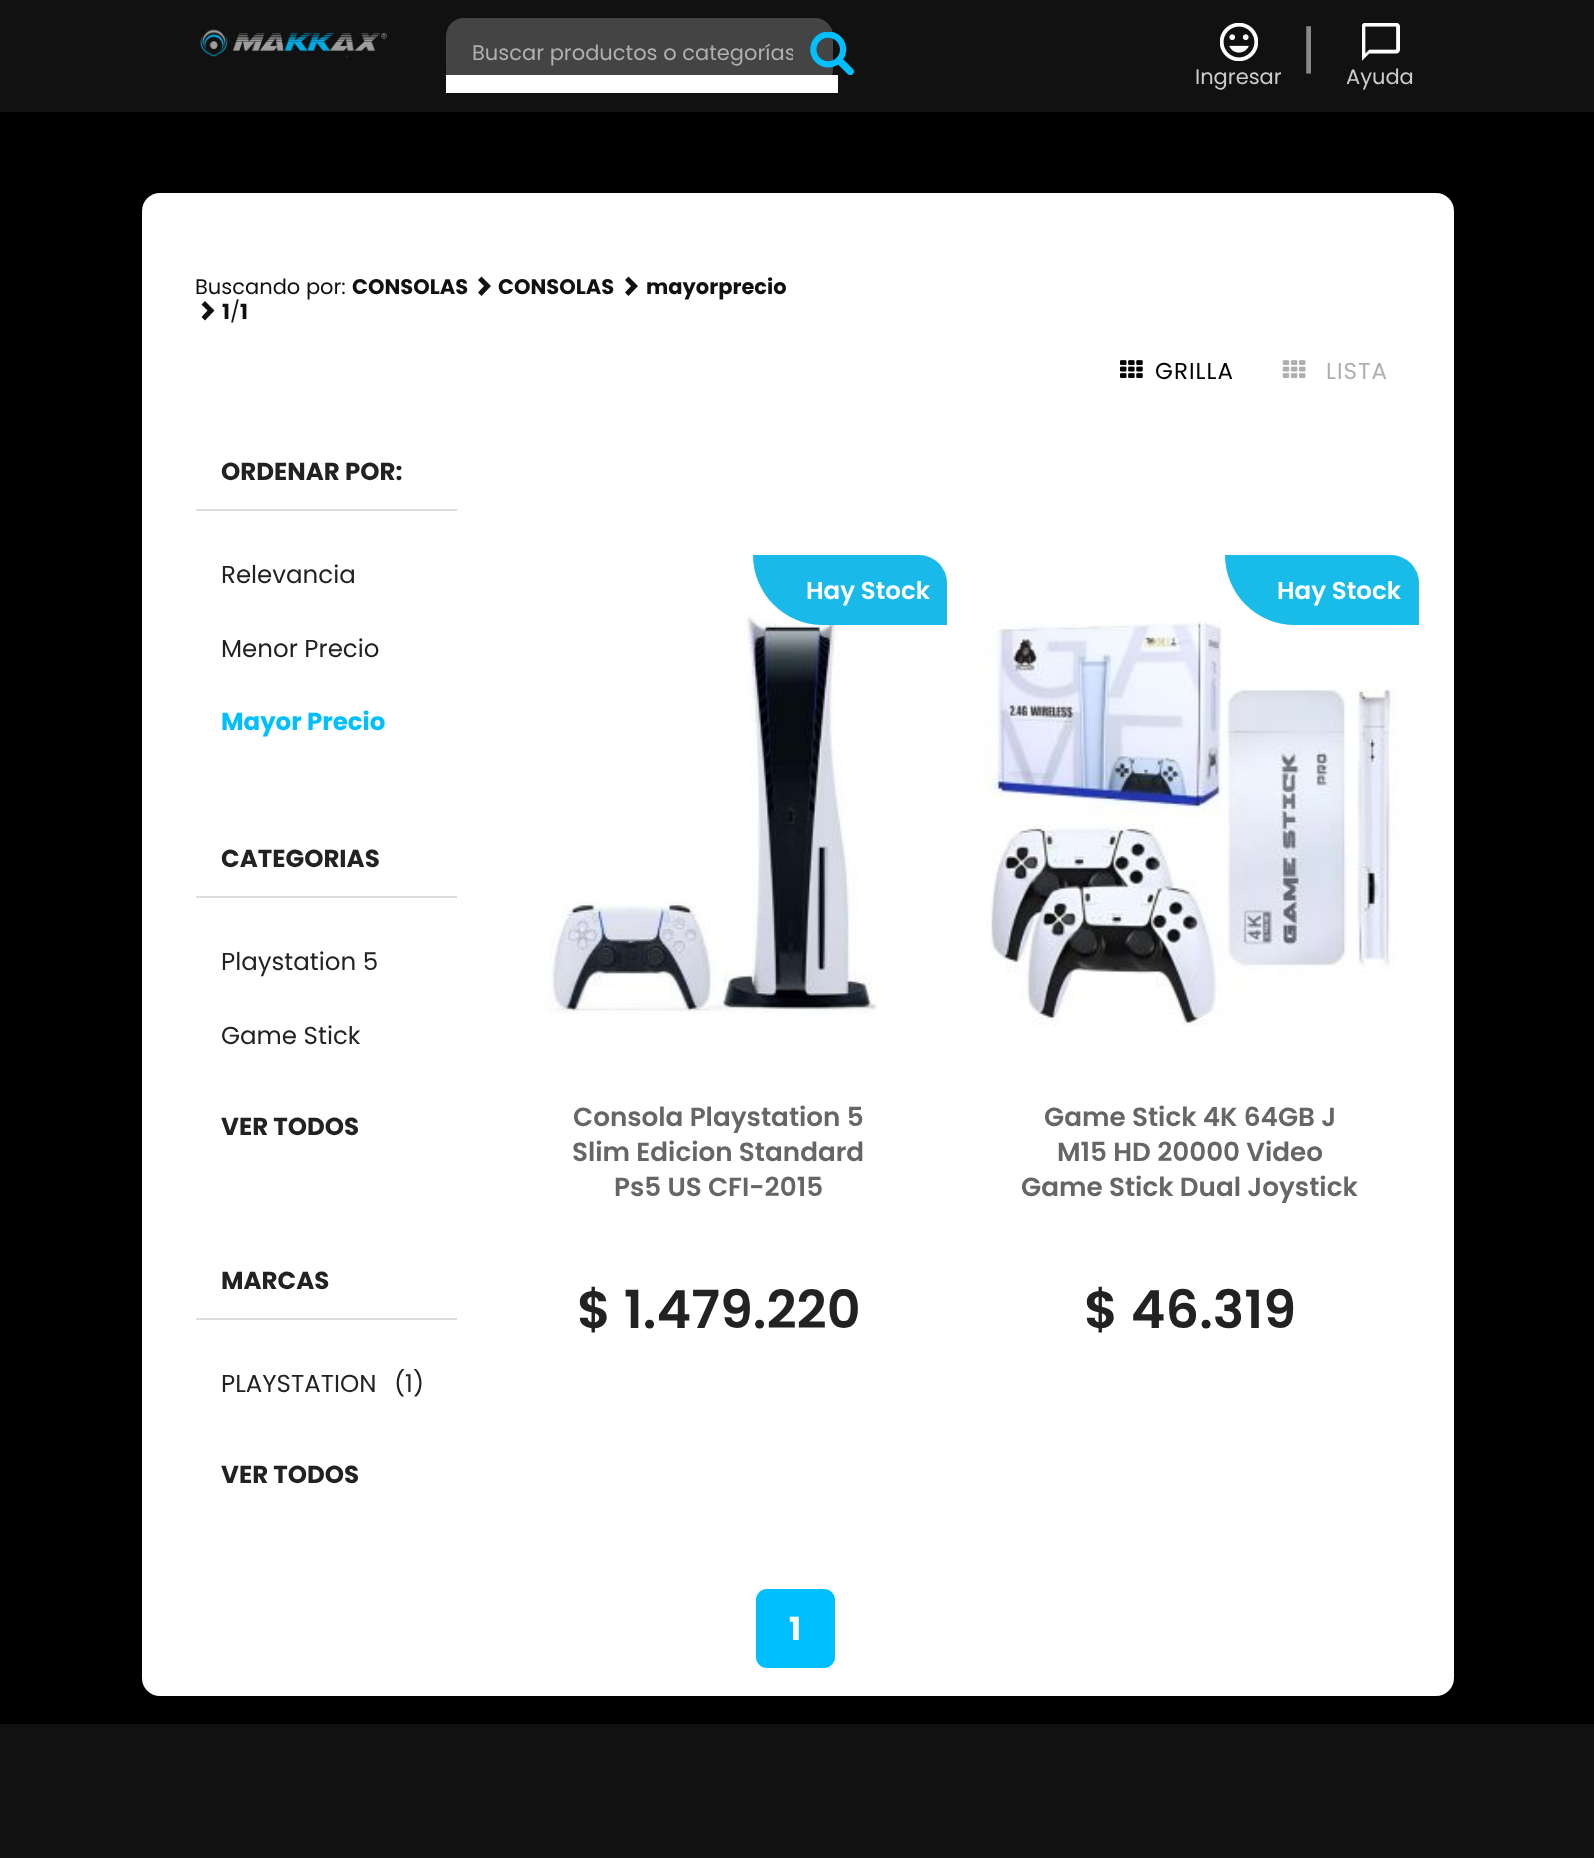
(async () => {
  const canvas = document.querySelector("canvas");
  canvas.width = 1594;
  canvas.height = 1858;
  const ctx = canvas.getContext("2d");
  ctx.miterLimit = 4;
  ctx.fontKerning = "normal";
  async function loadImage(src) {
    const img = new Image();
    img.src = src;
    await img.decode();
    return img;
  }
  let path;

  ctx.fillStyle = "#000000";
  ctx.fillRect(0, 0, 1594, 1858);
  ctx.fillStyle = "#111111";
  ctx.fillRect(0, 0, 1594, 112);
  ctx.drawImage(await loadImage("img/1.png"), 200, 29, 187, 29);
  ctx.fillStyle = "#444444";
  ctx.beginPath();
  ctx.roundRect(446, 18, 356, 70, [18, 0, 0, 18]);
  ctx.fill();
  ctx.beginPath();
  ctx.roundRect(802, 18, 31, 70, [0, 18, 18, 0]);
  ctx.fill();
  ctx.drawImage(await loadImage("img/2.png"), 810, 32, 44, 43);
  ctx.fillStyle = "#ffffff";
  ctx.fillRect(446, 75, 392, 18);
  ctx.drawImage(await loadImage("img/3.png"), 1220, 23, 38, 38);
  ctx.drawImage(await loadImage("img/4.png"), 1362, 23, 38, 38);
  ctx.beginPath();
  ctx.roundRect(142, 193, 1312, 1503, 18);
  ctx.fill();
  ctx.fillStyle = "#111111";
  path = new Path2D("M491 286L481.5 296L478 292.5L484 286L478 280L481.5 276.5Z");
  ctx.fill(path);
  path = new Path2D("M638 286L628.5 296L625 292.5L631 286L625 280L628.5 276.5Z");
  ctx.fill(path);
  path = new Path2D("M214.5 310.5L205 320.5L201.5 317L207.5 310.5L201.5 304.5L205 301Z");
  ctx.fill(path);
  ctx.drawImage(await loadImage("img/5.png"), 1120, 360, 23, 18);
  ctx.drawImage(await loadImage("img/6.png"), 1282, 360, 24, 18);
  for (const [x, y, w, h, color] of [
    [196, 509, 261, 2, "#dddddd"],
    [196, 896, 261, 2, "#dddddd"],
    [196, 1318, 261, 2, "#dddddd"],
  ]) {
    ctx.fillStyle = color;
    ctx.fillRect(x, y, w, h);
  }
  ctx.drawImage(await loadImage("img/7.png"), 545, 613, 333, 401);
  ctx.fillStyle = "rgba(0, 179, 231, 0.9)";
  ctx.beginPath();
  ctx.roundRect(753, 555, 194, 70, [0, 28, 0, 70]);
  ctx.fill();
  ctx.drawImage(await loadImage("img/8.png"), 979, 620, 419, 407);
  ctx.fillStyle = "#19bbe9";
  ctx.beginPath();
  ctx.roundRect(1225, 555, 194, 70, [0, 28, 0, 70]);
  ctx.fill();
  ctx.fillStyle = "#00bfff";
  ctx.beginPath();
  ctx.roundRect(758.5, 1591.5, 74, 74, 8.5);
  ctx.fill();
  ctx.strokeStyle = "#00bfff";
  ctx.lineWidth = 5;
  ctx.stroke();
  ctx.fillStyle = "#111111";
  ctx.fillRect(0, 1724, 1594, 134);
  ctx.save();
  ctx.beginPath();
  ctx.rect(473, 37, 320, 31);
  ctx.clip();
  ctx.font = "21px Poppins";
  ctx.fillStyle = "#afafaf";
  ctx.fillText("Buscar productos o categorías", 472, 60);
  ctx.restore();
  ctx.font = "52.5px Poppins";
  ctx.fillStyle = "#888888";
  ctx.fillText("|", 1301, 68);
  ctx.font = "21px Poppins";
  ctx.fillStyle = "#cccccc";
  ctx.fillText("Ingresar", 1195, 84);
  ctx.fillText("Ayuda", 1346, 84);
  ctx.fillStyle = "#111111";
  ctx.fillText("Buscando por:", 195, 294);
  ctx.font = "bold 21px Poppins";
  for (const [text, x, y] of [
    ["CONSOLAS", 352, 294],
    ["CONSOLAS", 498, 294],
    ["mayorprecio", 646, 294],
    ["1", 222, 319],
  ]) {
    ctx.fillText(text, x, y);
  }
  ctx.font = "21px Poppins";
  ctx.fillText("/", 230, 319);
  ctx.font = "bold 21px Poppins";
  ctx.fillText("1", 240, 319);
  ctx.letterSpacing = "1px";
  ctx.font = "23px Poppins";
  ctx.fillStyle = "#000000";
  ctx.fillText("GRILLA", 1155, 379);
  ctx.fillStyle = "#afafaf";
  ctx.fillText("LISTA", 1326, 379);
  ctx.letterSpacing = "0px";
  ctx.font = "bold 24.5px Poppins";
  ctx.fillStyle = "#222222";
  ctx.fillText("ORDENAR POR:", 221, 480);
  ctx.font = "24.5px Poppins";
  ctx.fillText("Relevancia", 221, 583);
  ctx.fillText("Menor Precio", 221, 657);
  ctx.font = "bold 24.5px Poppins";
  ctx.fillStyle = "#00bfff";
  ctx.fillText("Mayor Precio", 221, 730);
  ctx.fillStyle = "#222222";
  ctx.fillText("CATEGORIAS", 221, 867);
  ctx.font = "24.5px Poppins";
  ctx.fillText("Playstation 5", 221, 970);
  ctx.fillText("Game Stick", 221, 1044);
  ctx.font = "bold 24.5px Poppins";
  ctx.fillText("VER TODOS", 221, 1135);
  ctx.fillText("MARCAS", 221, 1289);
  ctx.font = "24.5px Poppins";
  ctx.fillText("PLAYSTATION", 221, 1392);
  ctx.fillText("(1)", 394, 1392);
  ctx.font = "bold 24.5px Poppins";
  ctx.fillText("VER TODOS", 221, 1483);
  ctx.font = "600 24.5px Poppins";
  ctx.fillStyle = "#ffffff";
  ctx.fillText("Hay Stock", 806, 599);
  ctx.font = "600 26.25px Poppins";
  ctx.fillStyle = "#666666";
  for (const [text, x, y] of [
    ["Consola Playstation 5", 573, 1126],
    ["Slim Edicion Standard", 572, 1161],
    ["Ps5 US CFI-2015", 614, 1196],
  ]) {
    ctx.fillText(text, x, y);
  }
  ctx.font = "600 52.5px Poppins";
  ctx.fillStyle = "#222222";
  ctx.fillText("$ 1.479.220", 577, 1328);
  ctx.font = "600 24.5px Poppins";
  ctx.fillStyle = "#ffffff";
  ctx.fillText("Hay Stock", 1277, 599);
  ctx.font = "600 26.25px Poppins";
  ctx.fillStyle = "#666666";
  for (const [text, x, y] of [
    ["Game Stick 4K 64GB J", 1044, 1126],
    ["M15 HD 20000 Video", 1057, 1161],
    ["Game Stick Dual Joystick", 1021, 1196],
  ]) {
    ctx.fillText(text, x, y);
  }
  ctx.font = "600 52.5px Poppins";
  ctx.fillStyle = "#222222";
  ctx.fillText("$ 46.319", 1084, 1328);
  ctx.font = "bold 32px Poppins";
  ctx.fillStyle = "#ffffff";
  ctx.fillText("1", 789, 1640);
})();
